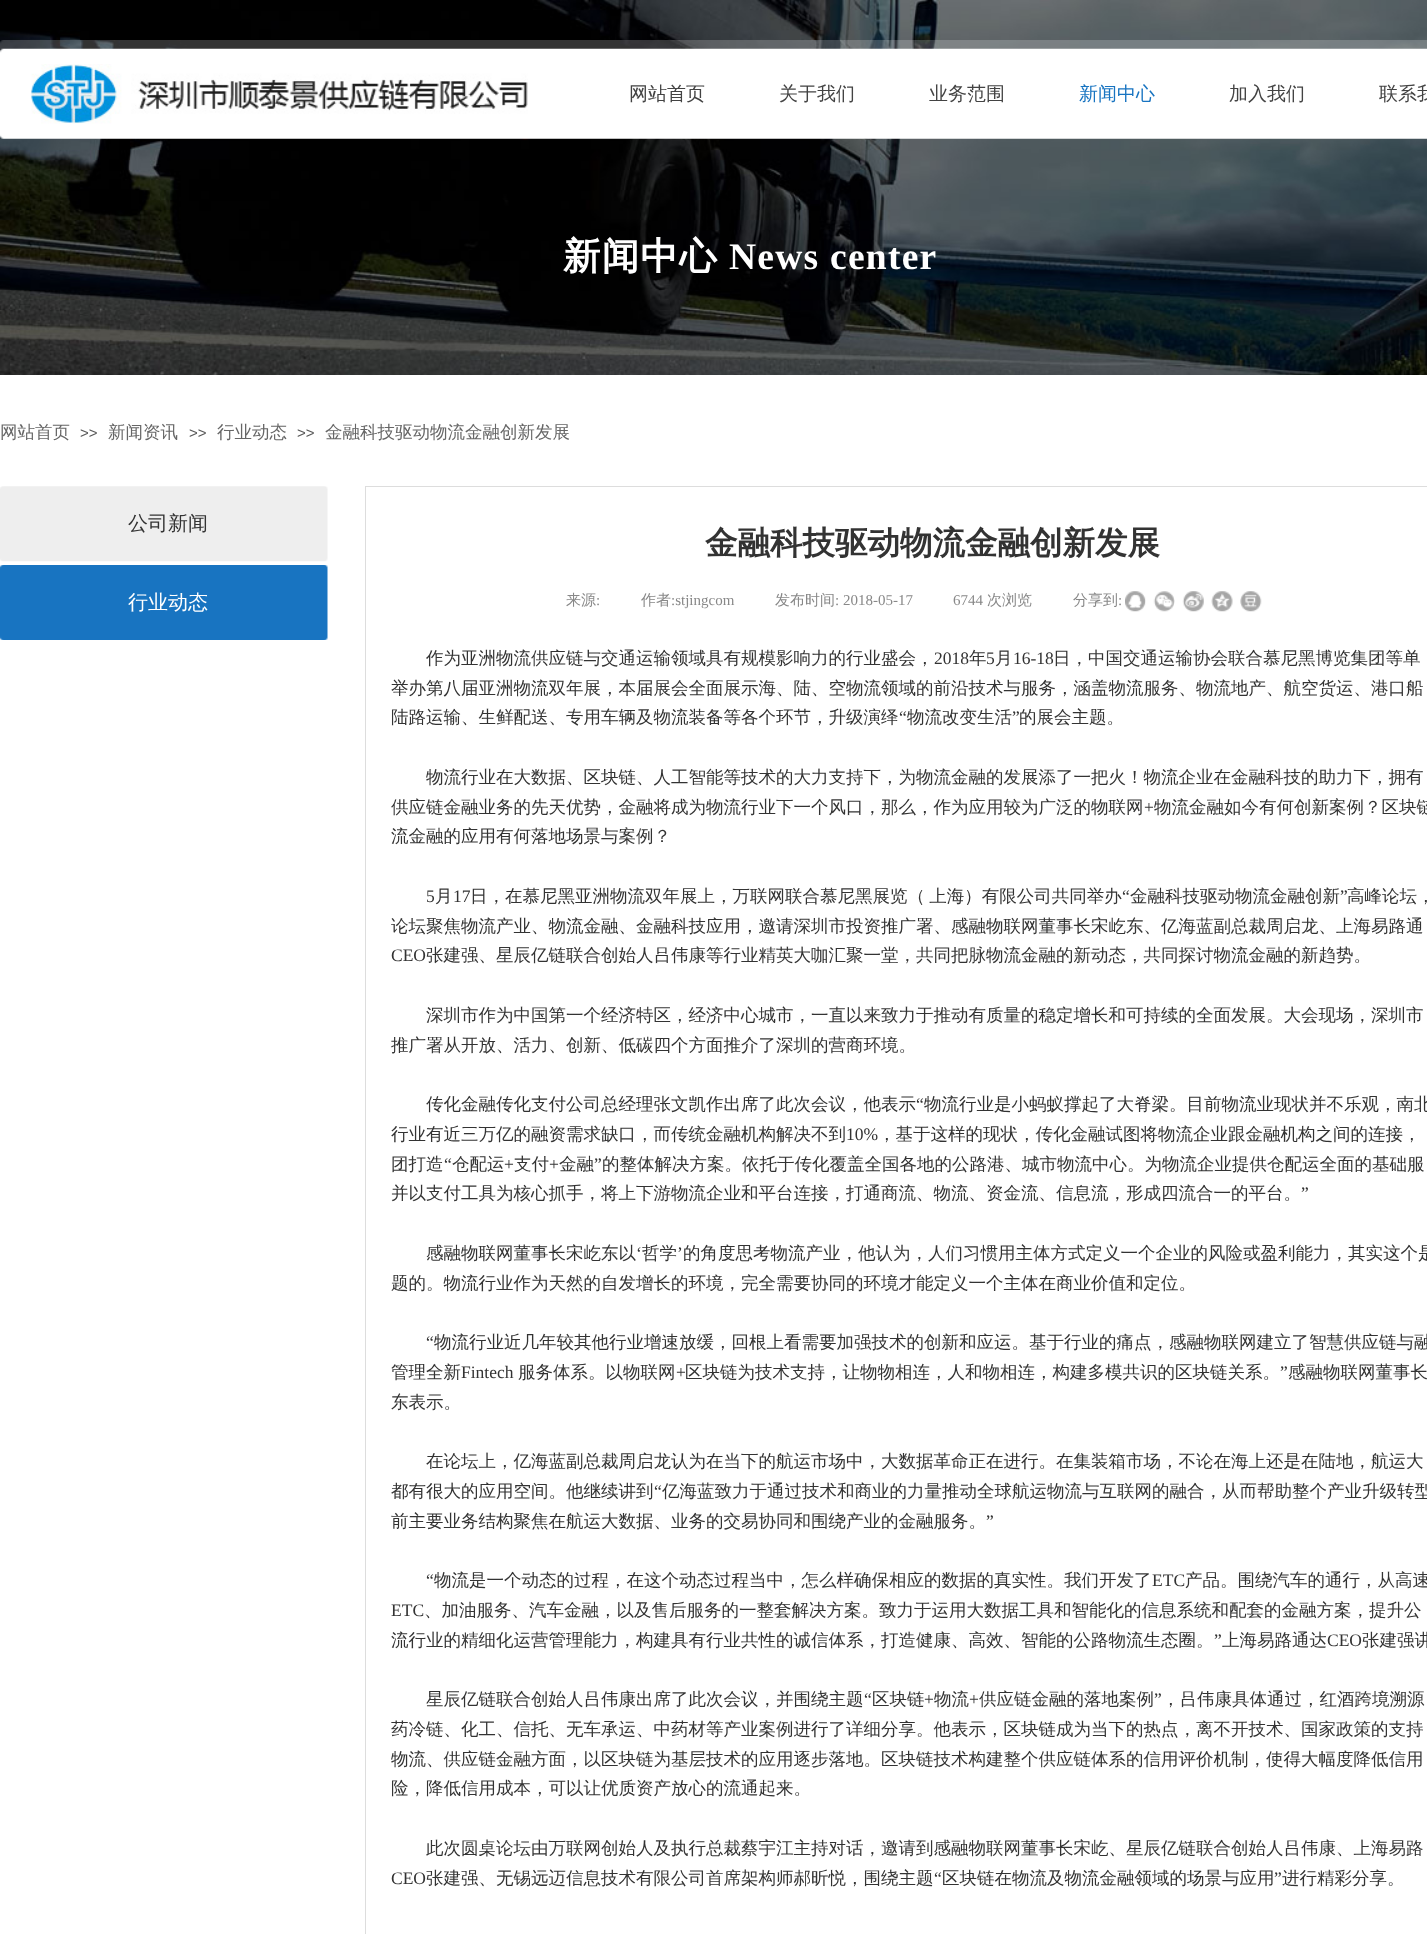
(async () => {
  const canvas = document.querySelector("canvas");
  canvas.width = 1427;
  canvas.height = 1934;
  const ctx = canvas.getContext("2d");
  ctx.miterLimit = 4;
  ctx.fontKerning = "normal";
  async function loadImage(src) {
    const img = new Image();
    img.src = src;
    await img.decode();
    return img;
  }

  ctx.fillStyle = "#ffffff";
  ctx.fillRect(0, 0, 1427, 1934);
  ctx.drawImage(await loadImage("img/1.png"), 0, 0, 1427, 375);
  ctx.drawImage(await loadImage("img/3.png"), 0, 40, 1427, 99);
  ctx.drawImage(await loadImage("img/2.png"), 31, 64, 497, 60);
  ctx.drawImage(await loadImage("img/4.png"), 0, 486, 328, 76);
  ctx.drawImage(await loadImage("img/5.png"), 0, 565, 328, 75);
  ctx.strokeStyle = "#dddddd";
  ctx.strokeRect(365.5, 486.5, 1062, 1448);
  ctx.drawImage(await loadImage("img/6.png"), 1125, 591, 21, 21);
  ctx.drawImage(await loadImage("img/7.png"), 1153, 591, 22, 21);
  ctx.drawImage(await loadImage("img/8.png"), 1182, 591, 22, 21);
  ctx.drawImage(await loadImage("img/9.png"), 1211, 591, 22, 21);
  ctx.drawImage(await loadImage("img/10.png"), 1240, 591, 22, 21);
  ctx.font = "500 19px WenQuanYi Zen Hei";
  ctx.fillStyle = "#434343";
  for (const [text, x, y] of [
    ["网站首页", 629, 100],
    ["关于我们", 779, 100],
    ["业务范围", 929, 100],
  ]) {
    ctx.fillText(text, x, y);
  }
  ctx.fillStyle = "#1874c1";
  ctx.fillText("新闻中心", 1079, 100);
  ctx.fillStyle = "#434343";
  ctx.fillText("加入我们", 1229, 100);
  ctx.fillText("联系我", 1379, 100);
  ctx.letterSpacing = "1.25px";
  ctx.font = "bold 37.5px WenQuanYi Zen Hei";
  ctx.fillStyle = "#ffffff";
  ctx.fillText("新闻中心", 563, 269);
  ctx.font = "bold 37.5px Liberation Serif";
  ctx.fillText("News center", 729, 269);
  ctx.letterSpacing = "0px";
  ctx.font = "500 17.5px WenQuanYi Zen Hei";
  ctx.fillStyle = "#666666";
  ctx.fillText("网站首页", 0, 438);
  ctx.font = "15px Liberation Sans";
  ctx.fillStyle = "#5a5a5a";
  ctx.fillText(">>", 80, 438);
  ctx.font = "500 17.5px WenQuanYi Zen Hei";
  ctx.fillStyle = "#666666";
  ctx.fillText("新闻资讯", 108, 438);
  ctx.font = "15px Liberation Sans";
  ctx.fillStyle = "#5a5a5a";
  ctx.fillText(">>", 189, 438);
  ctx.font = "500 17.5px WenQuanYi Zen Hei";
  ctx.fillStyle = "#666666";
  ctx.fillText("行业动态", 217, 438);
  ctx.font = "15px Liberation Sans";
  ctx.fillStyle = "#5a5a5a";
  ctx.fillText(">>", 297, 438);
  ctx.font = "500 17.5px WenQuanYi Zen Hei";
  ctx.fillStyle = "#666666";
  ctx.fillText("金融科技驱动物流金融创新发展", 325, 438);
  ctx.font = "500 20px WenQuanYi Zen Hei";
  ctx.fillStyle = "#333333";
  ctx.fillText("公司新闻", 128, 530);
  ctx.fillStyle = "#ffffff";
  ctx.fillText("行业动态", 128, 609);
  ctx.font = "bold 32.5px WenQuanYi Zen Hei";
  ctx.fillStyle = "#333333";
  ctx.fillText("金融科技驱动物流金融创新发展", 705, 554);
  ctx.font = "500 15px WenQuanYi Zen Hei";
  ctx.fillStyle = "#888888";
  ctx.fillText("来源", 566, 605);
  ctx.font = "15px Liberation Serif";
  ctx.fillText(":", 596, 605);
  ctx.font = "500 15px WenQuanYi Zen Hei";
  ctx.fillText("作者", 641, 605);
  ctx.font = "15px Liberation Serif";
  ctx.fillText(":stjingcom", 671, 605);
  ctx.font = "500 15px WenQuanYi Zen Hei";
  ctx.fillText("发布时间", 775, 605);
  ctx.font = "15px Liberation Serif";
  ctx.fillText(": 2018-05-17", 835, 605);
  ctx.fillText("6744", 953, 605);
  ctx.font = "500 15px WenQuanYi Zen Hei";
  ctx.fillText("次浏览", 987, 605);
  ctx.fillText("分享到", 1073, 605);
  ctx.font = "15px Liberation Serif";
  ctx.fillText(":", 1118, 605);
  ctx.font = "500 17.5px WenQuanYi Zen Hei";
  ctx.fillStyle = "#333333";
  ctx.fillText("作为亚洲物流供应链与交通运输领域具有规模影响力的行业盛会，", 426, 664);
  ctx.font = "17.5px Liberation Serif";
  ctx.fillText("2018", 934, 664);
  ctx.font = "500 17.5px WenQuanYi Zen Hei";
  ctx.fillText("年", 969, 664);
  ctx.font = "17.5px Liberation Serif";
  ctx.fillText("5", 986, 664);
  ctx.font = "500 17.5px WenQuanYi Zen Hei";
  ctx.fillText("月", 995, 664);
  ctx.font = "17.5px Liberation Serif";
  ctx.fillText("16-18", 1013, 664);
  ctx.font = "500 17.5px WenQuanYi Zen Hei";
  for (const [text, x, y] of [
    ["日，中国交通运输协会联合慕尼黑博览集团等单", 1053, 664],
    ["举办第八届亚洲物流双年展，本届展会全面展示海、陆、空物流领域的前沿技术与服务，涵盖物流服务、物流地产、航空货运、港口船", 391, 694],
    ["陆路运输、生鲜配送、专用车辆及物流装备等各个环节，升级演绎", 391, 723],
  ]) {
    ctx.fillText(text, x, y);
  }
  ctx.font = "17.5px Liberation Serif";
  ctx.fillText("“", 899, 723);
  ctx.font = "500 17.5px WenQuanYi Zen Hei";
  ctx.fillText("物流改变生活", 907, 723);
  ctx.font = "17.5px Liberation Serif";
  ctx.fillText("”", 1012, 723);
  ctx.font = "500 17.5px WenQuanYi Zen Hei";
  for (const [text, x, y] of [
    ["的展会主题。", 1019, 723],
    ["物流行业在大数据、区块链、人工智能等技术的大力支持下，为物流金融的发展添了一把火！物流企业在金融科技的助力下，拥有", 426, 783],
    ["供应链金融业务的先天优势，金融将成为物流行业下一个风口，那么，作为应用较为广泛的物联网", 391, 813],
  ]) {
    ctx.fillText(text, x, y);
  }
  ctx.font = "17.5px Liberation Serif";
  ctx.fillText("+", 1144, 813);
  ctx.font = "500 17.5px WenQuanYi Zen Hei";
  ctx.fillText("物流金融如今有何创新案例？区块链", 1154, 813);
  ctx.fillText("流金融的应用有何落地场景与案例？", 391, 842);
  ctx.font = "17.5px Liberation Serif";
  ctx.fillText("5", 426, 902);
  ctx.font = "500 17.5px WenQuanYi Zen Hei";
  ctx.fillText("月", 435, 902);
  ctx.font = "17.5px Liberation Serif";
  ctx.fillText("17", 453, 902);
  ctx.wordSpacing = "-1px";
  ctx.font = "500 17.5px WenQuanYi Zen Hei";
  ctx.fillText("日，在慕尼黑亚洲物流双年展上，万联网联合慕尼黑展览（ 上海）有限公司共同举办", 470, 902);
  ctx.wordSpacing = "0px";
  ctx.font = "17.5px Liberation Serif";
  ctx.fillText("“", 1122, 902);
  ctx.font = "500 17.5px WenQuanYi Zen Hei";
  ctx.fillText("金融科技驱动物流金融创新", 1130, 902);
  ctx.font = "17.5px Liberation Serif";
  ctx.fillText("”", 1340, 902);
  ctx.font = "500 17.5px WenQuanYi Zen Hei";
  ctx.fillText("高峰论坛，", 1347, 902);
  ctx.fillText("论坛聚焦物流产业、物流金融、金融科技应用，邀请深圳市投资推广署、感融物联网董事长宋屹东、亿海蓝副总裁周启龙、上海易路通", 391, 932);
  ctx.font = "17.5px Liberation Serif";
  ctx.fillText("CEO", 391, 961);
  ctx.font = "500 17.5px WenQuanYi Zen Hei";
  for (const [text, x, y] of [
    ["张建强、星辰亿链联合创始人吕伟康等行业精英大咖汇聚一堂，共同把脉物流金融的新动态，共同探讨物流金融的新趋势。", 426, 961],
    ["深圳市作为中国第一个经济特区，经济中心城市，一直以来致力于推动有质量的稳定增长和可持续的全面发展。大会现场，深圳市", 426, 1021],
    ["推广署从开放、活力、创新、低碳四个方面推介了深圳的营商环境。", 391, 1051],
    ["传化金融传化支付公司总经理张文凯作出席了此次会议，他表示", 426, 1110],
  ]) {
    ctx.fillText(text, x, y);
  }
  ctx.font = "17.5px Liberation Serif";
  ctx.fillText("“", 916, 1110);
  ctx.font = "500 17.5px WenQuanYi Zen Hei";
  ctx.fillText("物流行业是小蚂蚁撑起了大脊梁。目前物流业现状并不乐观，南北", 924, 1110);
  ctx.fillText("行业有近三万亿的融资需求缺口，而传统金融机构解决不到", 391, 1140);
  ctx.font = "17.5px Liberation Serif";
  ctx.fillText("10%", 846, 1140);
  ctx.font = "500 17.5px WenQuanYi Zen Hei";
  ctx.fillText("，基于这样的现状，传化金融试图将物流企业跟金融机构之间的连接，", 878, 1140);
  ctx.fillText("团打造", 391, 1170);
  ctx.font = "17.5px Liberation Serif";
  ctx.fillText("“", 444, 1170);
  ctx.font = "500 17.5px WenQuanYi Zen Hei";
  ctx.fillText("仓配运", 452, 1170);
  ctx.font = "17.5px Liberation Serif";
  ctx.fillText("+", 504, 1170);
  ctx.font = "500 17.5px WenQuanYi Zen Hei";
  ctx.fillText("支付", 514, 1170);
  ctx.font = "17.5px Liberation Serif";
  ctx.fillText("+", 549, 1170);
  ctx.font = "500 17.5px WenQuanYi Zen Hei";
  ctx.fillText("金融", 559, 1170);
  ctx.font = "17.5px Liberation Serif";
  ctx.fillText("”", 594, 1170);
  ctx.font = "500 17.5px WenQuanYi Zen Hei";
  ctx.fillText("的整体解决方案。依托于传化覆盖全国各地的公路港、城市物流中心。为物流企业提供仓配运全面的基础服", 602, 1170);
  ctx.fillText("并以支付工具为核心抓手，将上下游物流企业和平台连接，打通商流、物流、资金流、信息流，形成四流合一的平台。", 391, 1199);
  ctx.font = "17.5px Liberation Serif";
  ctx.fillText("”", 1301, 1199);
  ctx.font = "500 17.5px WenQuanYi Zen Hei";
  ctx.fillText("感融物联网董事长宋屹东以", 426, 1259);
  ctx.font = "17.5px Liberation Serif";
  ctx.fillText("‘", 636, 1259);
  ctx.font = "500 17.5px WenQuanYi Zen Hei";
  ctx.fillText("哲学", 642, 1259);
  ctx.font = "17.5px Liberation Serif";
  ctx.fillText("’", 677, 1259);
  ctx.font = "500 17.5px WenQuanYi Zen Hei";
  ctx.fillText("的角度思考物流产业，他认为，人们习惯用主体方式定义一个企业的风险或盈利能力，其实这个是", 683, 1259);
  ctx.fillText("题的。物流行业作为天然的自发增长的环境，完全需要协同的环境才能定义一个主体在商业价值和定位。", 391, 1289);
  ctx.font = "17.5px Liberation Serif";
  ctx.fillText("“", 426, 1348);
  ctx.font = "500 17.5px WenQuanYi Zen Hei";
  ctx.fillText("物流行业近几年较其他行业增速放缓，回根上看需要加强技术的创新和应运。基于行业的痛点，感融物联网建立了智慧供应链与融", 434, 1348);
  ctx.fillText("管理全新", 391, 1378);
  ctx.font = "17.5px Liberation Serif";
  ctx.fillText("Fintech", 461, 1378);
  ctx.font = "500 17.5px WenQuanYi Zen Hei";
  ctx.fillText("服务体系。以物联网", 518, 1378);
  ctx.font = "17.5px Liberation Serif";
  ctx.fillText("+", 676, 1378);
  ctx.font = "500 17.5px WenQuanYi Zen Hei";
  ctx.fillText("区块链为技术支持，让物物相连，人和物相连，构建多模共识的区块链关系。", 685, 1378);
  ctx.font = "17.5px Liberation Serif";
  ctx.fillText("”", 1280, 1378);
  ctx.font = "500 17.5px WenQuanYi Zen Hei";
  for (const [text, x, y] of [
    ["感融物联网董事长", 1288, 1378],
    ["东表示。", 391, 1408],
    ["在论坛上，亿海蓝副总裁周启龙认为在当下的航运市场中，大数据革命正在进行。在集装箱市场，不论在海上还是在陆地，航运大", 426, 1467],
    ["都有很大的应用空间。他继续讲到", 391, 1497],
  ]) {
    ctx.fillText(text, x, y);
  }
  ctx.font = "17.5px Liberation Serif";
  ctx.fillText("“", 654, 1497);
  ctx.font = "500 17.5px WenQuanYi Zen Hei";
  ctx.fillText("亿海蓝致力于通过技术和商业的力量推动全球航运物流与互联网的融合，从而帮助整个产业升级转型", 662, 1497);
  ctx.fillText("前主要业务结构聚焦在航运大数据、业务的交易协同和围绕产业的金融服务。", 391, 1527);
  ctx.font = "17.5px Liberation Serif";
  ctx.fillText("”", 986, 1527);
  ctx.fillText("“", 426, 1586);
  ctx.font = "500 17.5px WenQuanYi Zen Hei";
  ctx.fillText("物流是一个动态的过程，在这个动态过程当中，怎么样确保相应的数据的真实性。我们开发了", 434, 1586);
  ctx.font = "17.5px Liberation Serif";
  ctx.fillText("ETC", 1152, 1586);
  ctx.font = "500 17.5px WenQuanYi Zen Hei";
  ctx.fillText("产品。围绕汽车的通行，从高速", 1185, 1586);
  ctx.font = "17.5px Liberation Serif";
  ctx.fillText("ETC", 391, 1616);
  ctx.font = "500 17.5px WenQuanYi Zen Hei";
  ctx.fillText("、加油服务、汽车金融，以及售后服务的一整套解决方案。致力于运用大数据工具和智能化的信息系统和配套的金融方案，提升公", 424, 1616);
  ctx.fillText("流行业的精细化运营管理能力，构建具有行业共性的诚信体系，打造健康、高效、智能的公路物流生态圈。", 391, 1646);
  ctx.font = "17.5px Liberation Serif";
  ctx.fillText("”", 1214, 1646);
  ctx.font = "500 17.5px WenQuanYi Zen Hei";
  ctx.fillText("上海易路通达", 1222, 1646);
  ctx.font = "17.5px Liberation Serif";
  ctx.fillText("CEO", 1327, 1646);
  ctx.font = "500 17.5px WenQuanYi Zen Hei";
  ctx.fillText("张建强讲", 1362, 1646);
  ctx.fillText("星辰亿链联合创始人吕伟康出席了此次会议，并围绕主题", 426, 1705);
  ctx.font = "17.5px Liberation Serif";
  ctx.fillText("“", 864, 1705);
  ctx.font = "500 17.5px WenQuanYi Zen Hei";
  ctx.fillText("区块链", 872, 1705);
  ctx.font = "17.5px Liberation Serif";
  ctx.fillText("+", 924, 1705);
  ctx.font = "500 17.5px WenQuanYi Zen Hei";
  ctx.fillText("物流", 934, 1705);
  ctx.font = "17.5px Liberation Serif";
  ctx.fillText("+", 969, 1705);
  ctx.font = "500 17.5px WenQuanYi Zen Hei";
  ctx.fillText("供应链金融的落地案例", 979, 1705);
  ctx.font = "17.5px Liberation Serif";
  ctx.fillText("”", 1154, 1705);
  ctx.font = "500 17.5px WenQuanYi Zen Hei";
  for (const [text, x, y] of [
    ["，吕伟康具体通过，红酒跨境溯源", 1162, 1705],
    ["药冷链、化工、信托、无车承运、中药材等产业案例进行了详细分享。他表示，区块链成为当下的热点，离不开技术、国家政策的支持", 391, 1735],
    ["物流、供应链金融方面，以区块链为基层技术的应用逐步落地。区块链技术构建整个供应链体系的信用评价机制，使得大幅度降低信用", 391, 1765],
    ["险，降低信用成本，可以让优质资产放心的流通起来。", 391, 1794],
    ["此次圆桌论坛由万联网创始人及执行总裁蔡宇江主持对话，邀请到感融物联网董事长宋屹、星辰亿链联合创始人吕伟康、上海易路", 426, 1854],
  ]) {
    ctx.fillText(text, x, y);
  }
  ctx.font = "17.5px Liberation Serif";
  ctx.fillText("CEO", 391, 1884);
  ctx.font = "500 17.5px WenQuanYi Zen Hei";
  ctx.fillText("张建强、无锡远迈信息技术有限公司首席架构师郝昕悦，围绕主题", 426, 1884);
  ctx.font = "17.5px Liberation Serif";
  ctx.fillText("“", 934, 1884);
  ctx.font = "500 17.5px WenQuanYi Zen Hei";
  ctx.fillText("区块链在物流及物流金融领域的场景与应用", 942, 1884);
  ctx.font = "17.5px Liberation Serif";
  ctx.fillText("”", 1274, 1884);
  ctx.font = "500 17.5px WenQuanYi Zen Hei";
  ctx.fillText("进行精彩分享。", 1282, 1884);
})();
